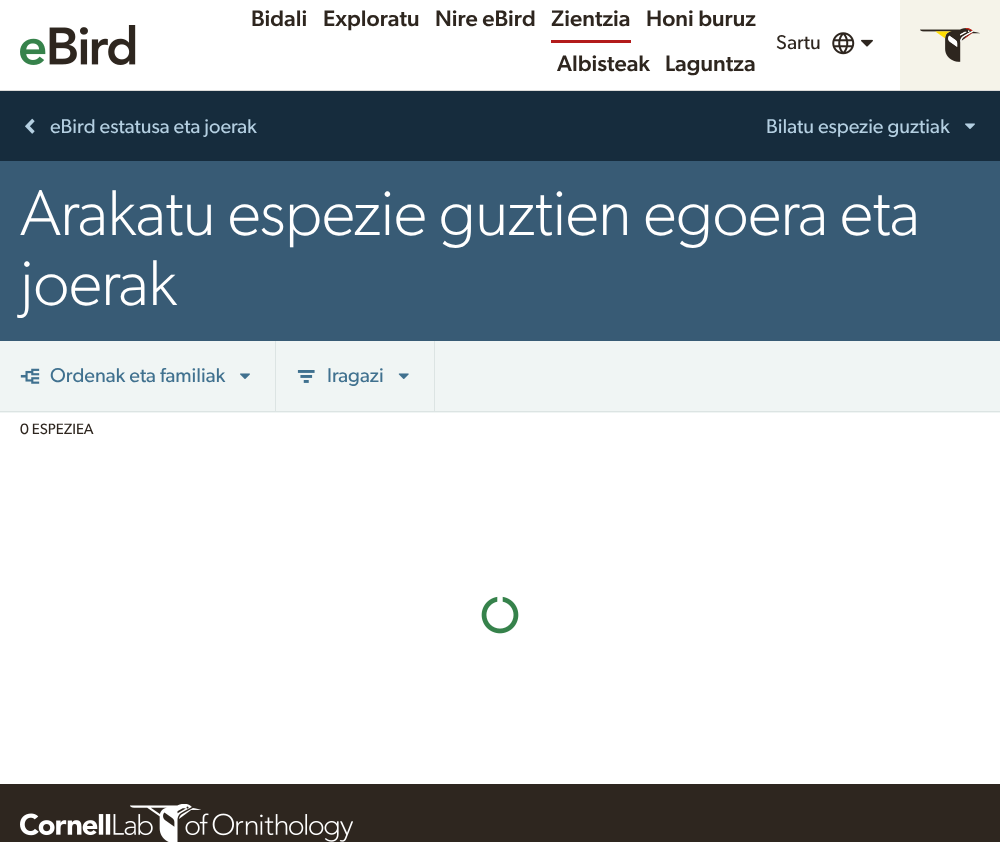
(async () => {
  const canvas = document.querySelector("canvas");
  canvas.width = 1000;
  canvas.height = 842;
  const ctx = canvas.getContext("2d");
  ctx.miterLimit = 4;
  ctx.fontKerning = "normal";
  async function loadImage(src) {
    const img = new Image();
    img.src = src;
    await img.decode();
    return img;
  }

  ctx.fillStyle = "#ffffff";
  ctx.fillRect(0, 0, 1000, 842);
  ctx.fillStyle = "#dbdbd9";
  ctx.fillRect(0, 90, 1000, 1);
  ctx.drawImage(await loadImage("img/1.png"), 20, 25, 116, 40);
  ctx.fillStyle = "#b31b1b";
  ctx.fillRect(551, 40, 80, 3);
  ctx.drawImage(await loadImage("img/2.png"), 832, 32, 23, 23);
  ctx.drawImage(await loadImage("img/3.png"), 861, 39, 12, 8);
  ctx.fillStyle = "#f5f3e9";
  ctx.fillRect(900, 0, 100, 90);
  ctx.drawImage(await loadImage("img/4.png"), 920, 28, 60, 34);
  ctx.fillStyle = "#162c3d";
  ctx.fillRect(0, 91, 1000, 70);
  ctx.drawImage(await loadImage("img/5.png"), 25, 118, 10, 16);
  ctx.drawImage(await loadImage("img/6.png"), 965, 123, 10, 6);
  for (const [x, y, w, h, color] of [
    [0, 161, 1000, 180, "#385b75"],
    [0, 341, 1000, 72, "#f0f5f4"],
    [0, 411, 1000, 1, "#dce4e3"],
    [275, 341, 1, 70, "#dce4e3"],
  ]) {
    ctx.fillStyle = color;
    ctx.fillRect(x, y, w, h);
  }
  ctx.drawImage(await loadImage("img/7.png"), 20, 368, 20, 16);
  ctx.drawImage(await loadImage("img/8.png"), 240, 373, 10, 6);
  ctx.fillRect(434, 341, 1, 70);
  ctx.drawImage(await loadImage("img/9.png"), 297, 370, 18, 13);
  ctx.drawImage(await loadImage("img/10.png"), 398, 373, 11, 6);
  ctx.drawImage(await loadImage("img/11.png"), 481, 596, 38, 38);
  ctx.fillStyle = "#2e261f";
  ctx.fillRect(0, 784, 1000, 58);
  ctx.drawImage(await loadImage("img/12.png"), 20, 804, 333, 38);
  ctx.font = "500 22.5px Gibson";
  for (const [text, x, y] of [
    ["Bidali", 251, 26],
    ["Exploratu", 323, 26],
    ["Nire eBird", 435, 26],
    ["Zientzia", 551, 26],
    ["Honi buruz", 646, 26],
    ["Albisteak", 557, 71],
    ["Laguntza", 665, 71],
  ]) {
    ctx.fillText(text, x, y);
  }
  ctx.font = "20px Gibson";
  ctx.fillText("Sartu", 776, 49);
  ctx.fillStyle = "#b4cfe1";
  ctx.fillText("eBird estatusa eta joerak", 50, 133);
  ctx.fillText("Bilatu espezie guztiak", 766, 133);
  ctx.letterSpacing = "-0.6px";
  ctx.font = "300 65px Gibson";
  ctx.fillStyle = "#ffffff";
  ctx.fillText("Arakatu espezie guztien egoera eta", 20, 235);
  ctx.fillText("joerak", 20, 305);
  ctx.letterSpacing = "0px";
  ctx.font = "20px Gibson";
  ctx.fillStyle = "#40718f";
  ctx.fillText("Ordenak eta familiak", 50, 382);
  ctx.fillText("Iragazi", 327, 382);
  ctx.font = "15px Gibson";
  ctx.fillStyle = "#2e261f";
  ctx.fillText("0 ESPEZIEA", 20, 434);
})();
